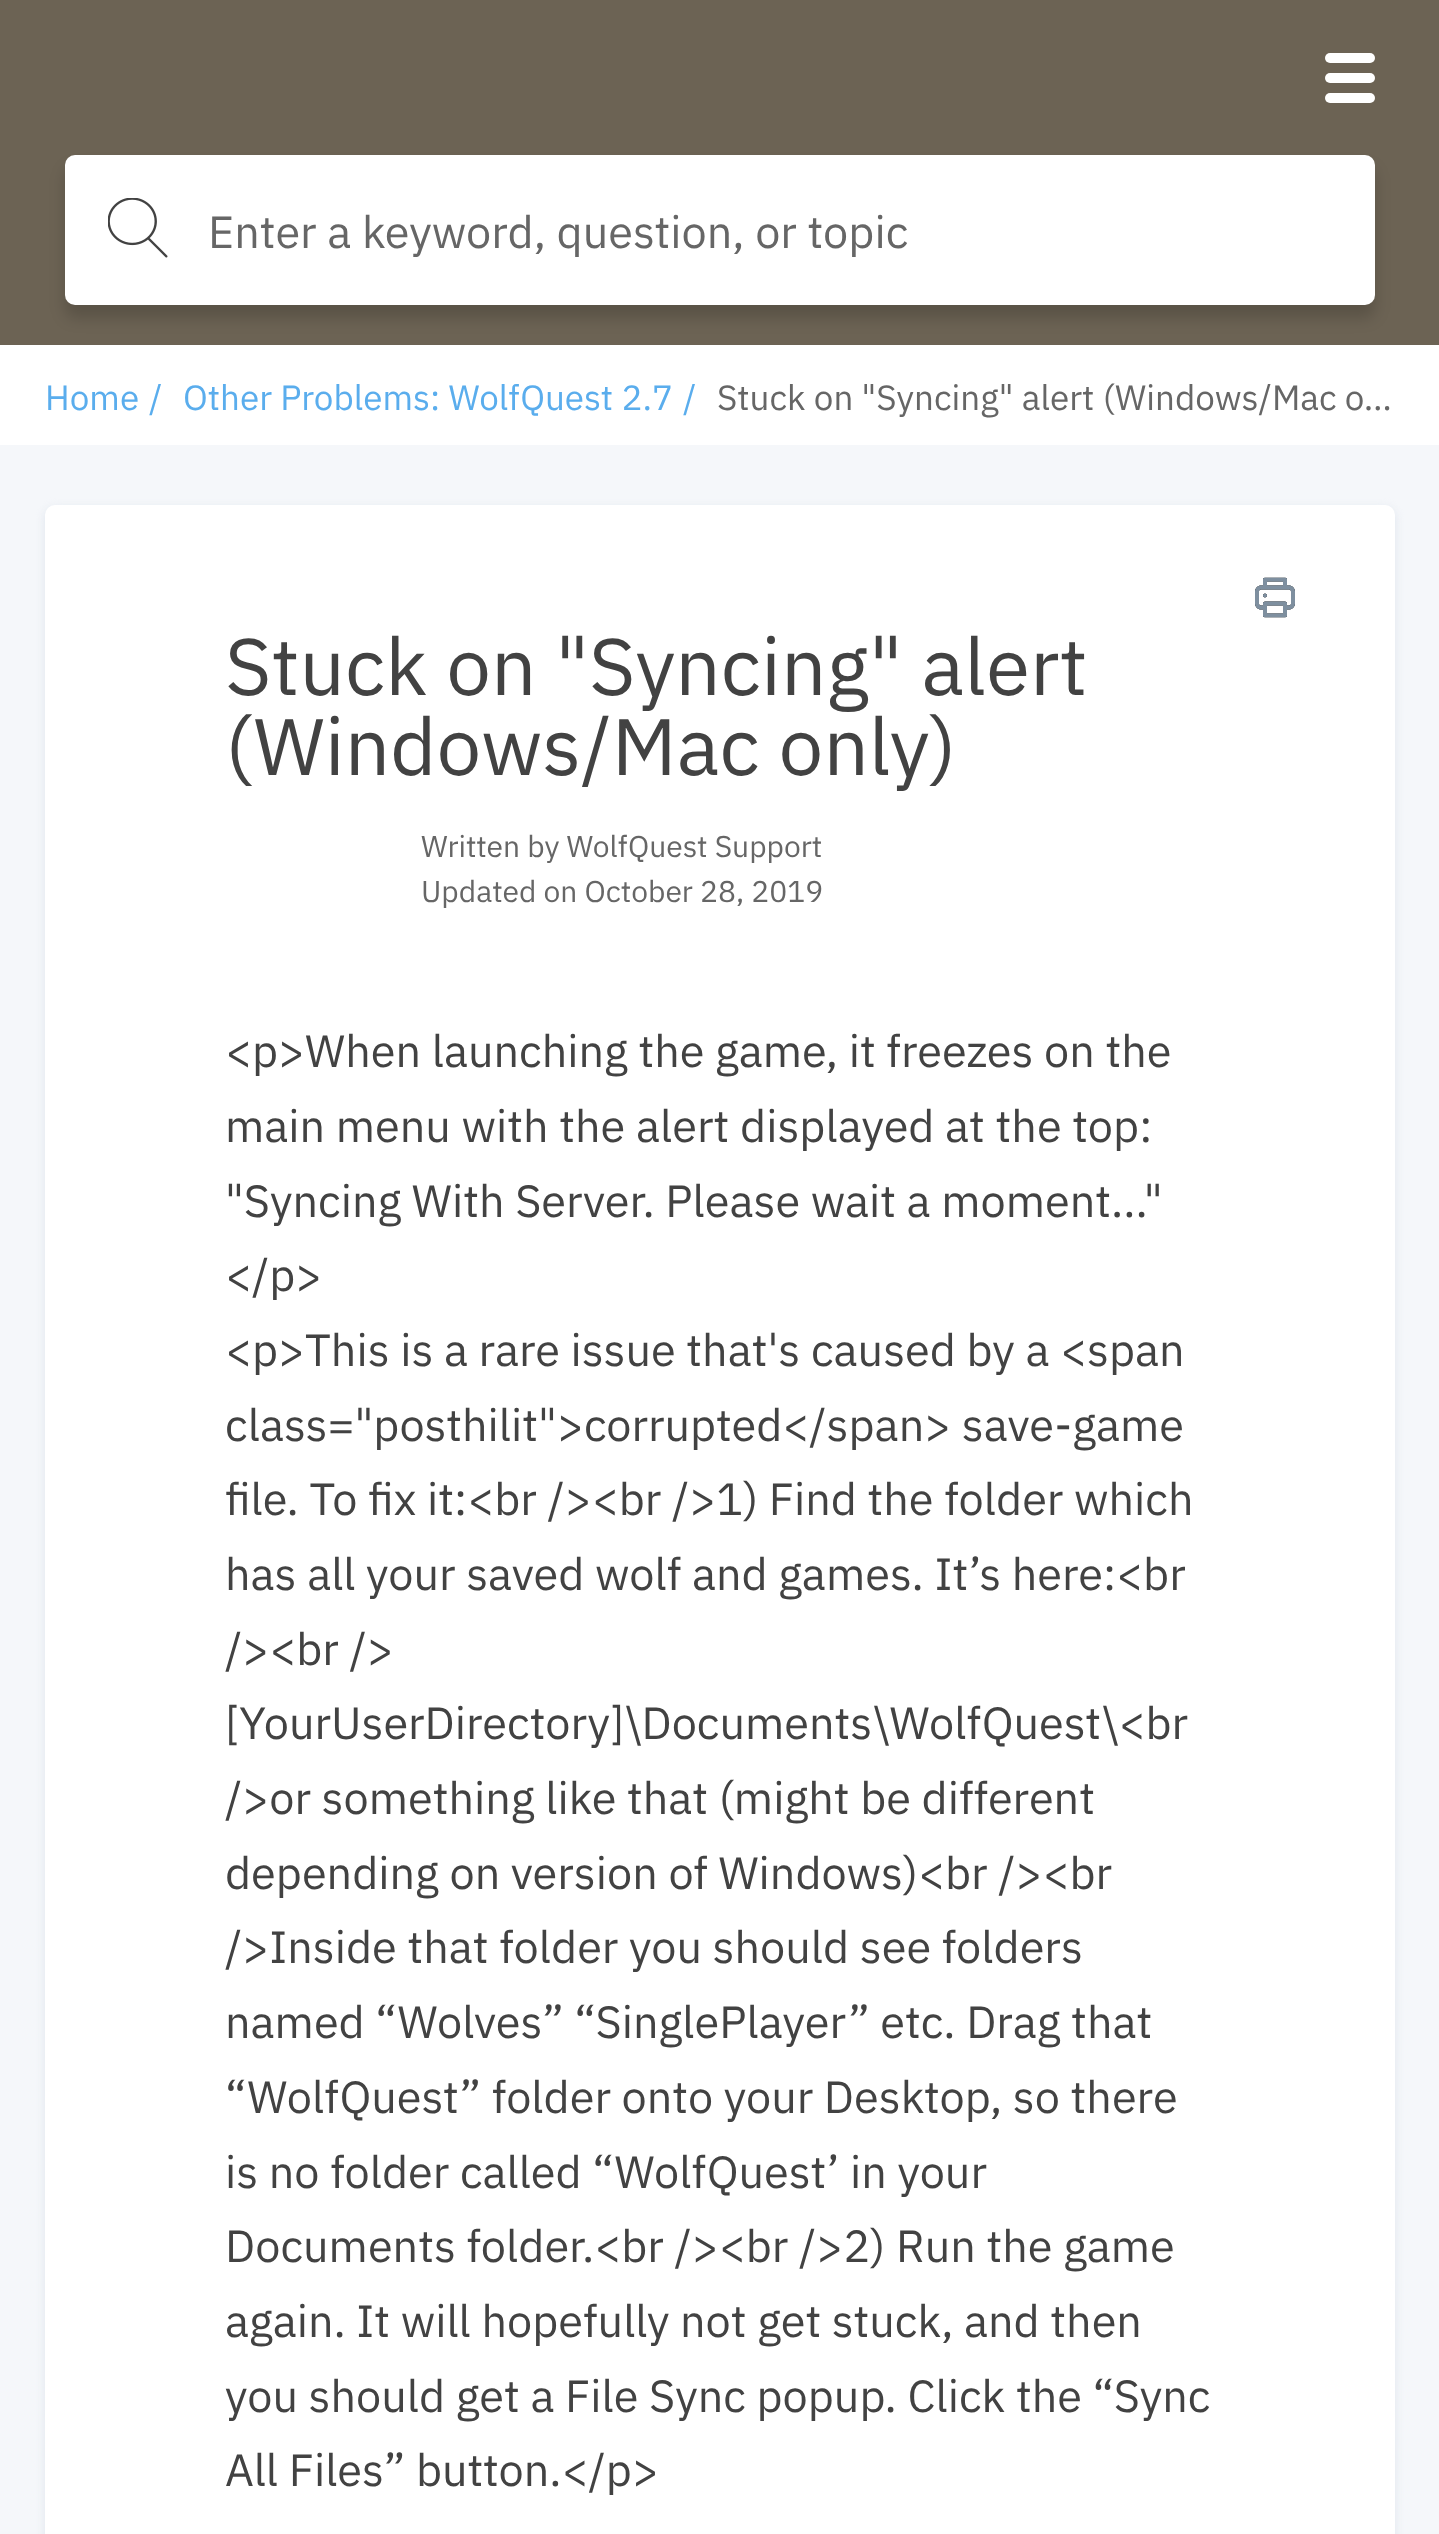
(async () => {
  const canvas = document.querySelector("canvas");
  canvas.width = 1439;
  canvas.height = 2534;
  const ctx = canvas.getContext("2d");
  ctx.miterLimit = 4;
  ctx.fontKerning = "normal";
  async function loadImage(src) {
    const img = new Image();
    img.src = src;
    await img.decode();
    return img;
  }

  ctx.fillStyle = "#f5f7fa";
  ctx.fillRect(0, 0, 1439, 2534);
  ctx.fillStyle = "#6c6354";
  ctx.fillRect(0, 0, 1439, 345);
  ctx.fillStyle = "#ffffff";
  ctx.beginPath();
  ctx.roundRect(1325, 53, 50, 10, 5);
  ctx.fill();
  ctx.beginPath();
  ctx.roundRect(1325, 73, 50, 10, 5);
  ctx.fill();
  ctx.beginPath();
  ctx.roundRect(1325, 93, 50, 10, 5);
  ctx.fill();
  ctx.fillStyle = "rgba(0, 0, 0, 0.17)";
  ctx.filter = "blur(7.5px)";
  ctx.beginPath();
  ctx.roundRect(65, 168, 1310, 150, 10);
  ctx.fill();
  ctx.filter = "none";
  ctx.fillStyle = "#ffffff";
  ctx.beginPath();
  ctx.roundRect(65, 155, 1310, 150, 10);
  ctx.fill();
  ctx.drawImage(await loadImage("img/1.png"), 108, 198, 60, 60);
  ctx.fillRect(0, 345, 1439, 100);
  ctx.fillStyle = "#dfe5ee";
  ctx.filter = "blur(5px)";
  ctx.beginPath();
  ctx.roundRect(45, 508, 1350, 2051, 10);
  ctx.fill();
  ctx.filter = "none";
  ctx.fillStyle = "#ffffff";
  ctx.beginPath();
  ctx.roundRect(45, 505, 1350, 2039, 10);
  ctx.fill();
  ctx.drawImage(await loadImage("img/2.png"), 1255, 577, 40, 41);
  ctx.font = "45px IBM Plex Sans";
  ctx.fillStyle = "#666666";
  ctx.fillText("Enter a keyword, question, or topic", 208, 248);
  ctx.font = "35px IBM Plex Sans";
  ctx.fillStyle = "#5aaded";
  for (const [text, x, y] of [
    ["Home", 45, 410],
    ["/", 149, 410],
    ["Other Problems: WolfQuest 2.7", 183, 410],
    ["/", 683, 410],
  ]) {
    ctx.fillText(text, x, y);
  }
  ctx.fillStyle = "#666666";
  ctx.fillText("Stuck on \"Syncing\" alert (Windows/Mac o…", 717, 410);
  ctx.font = "80px IBM Plex Sans";
  ctx.fillStyle = "#424242";
  ctx.fillText("Stuck on \"Syncing\" alert", 225, 695);
  ctx.fillText("(Windows/Mac only)", 225, 775);
  ctx.font = "30px IBM Plex Sans";
  ctx.fillStyle = "#666666";
  ctx.fillText("Written by WolfQuest Support", 421, 857);
  ctx.fillText("Updated on October 28, 2019", 421, 902);
  ctx.font = "45px IBM Plex Sans";
  ctx.fillStyle = "#424242";
  for (const [text, x, y] of [
    ["<p>When launching the game, it freezes on the", 225, 1067],
    ["main menu with the alert displayed at the top:", 225, 1142],
    ["\"Syncing With Server. Please wait a moment...\"", 225, 1217],
    ["<\/p>", 225, 1291],
    ["<p>This is a rare issue that's caused by a <span", 225, 1366],
    ["class=\"posthilit\">corrupted<\/span> save-game", 225, 1441],
    ["file. To fix it:<br /><br />1) Find the folder which", 225, 1515],
    ["has all your saved wolf and games. It’s here:<br", 225, 1590],
    ["/><br />", 225, 1665],
    ["[YourUserDirectory]\\Documents\\WolfQuest\\<br", 225, 1739],
    ["/>or something like that (might be different", 225, 1814],
    ["depending on version of Windows)<br /><br", 225, 1889],
    ["/>Inside that folder you should see folders", 225, 1963],
    ["named “Wolves” “SinglePlayer” etc. Drag that", 225, 2038],
    ["“WolfQuest” folder onto your Desktop, so there", 225, 2113],
    ["is no folder called “WolfQuest’ in your", 225, 2188],
    ["Documents folder.<br /><br />2) Run the game", 225, 2262],
    ["again. It will hopefully not get stuck, and then", 225, 2337],
    ["you should get a File Sync popup. Click the “Sync", 225, 2412],
    ["All Files” button.<\/p>", 225, 2486],
  ]) {
    ctx.fillText(text, x, y);
  }
})();
